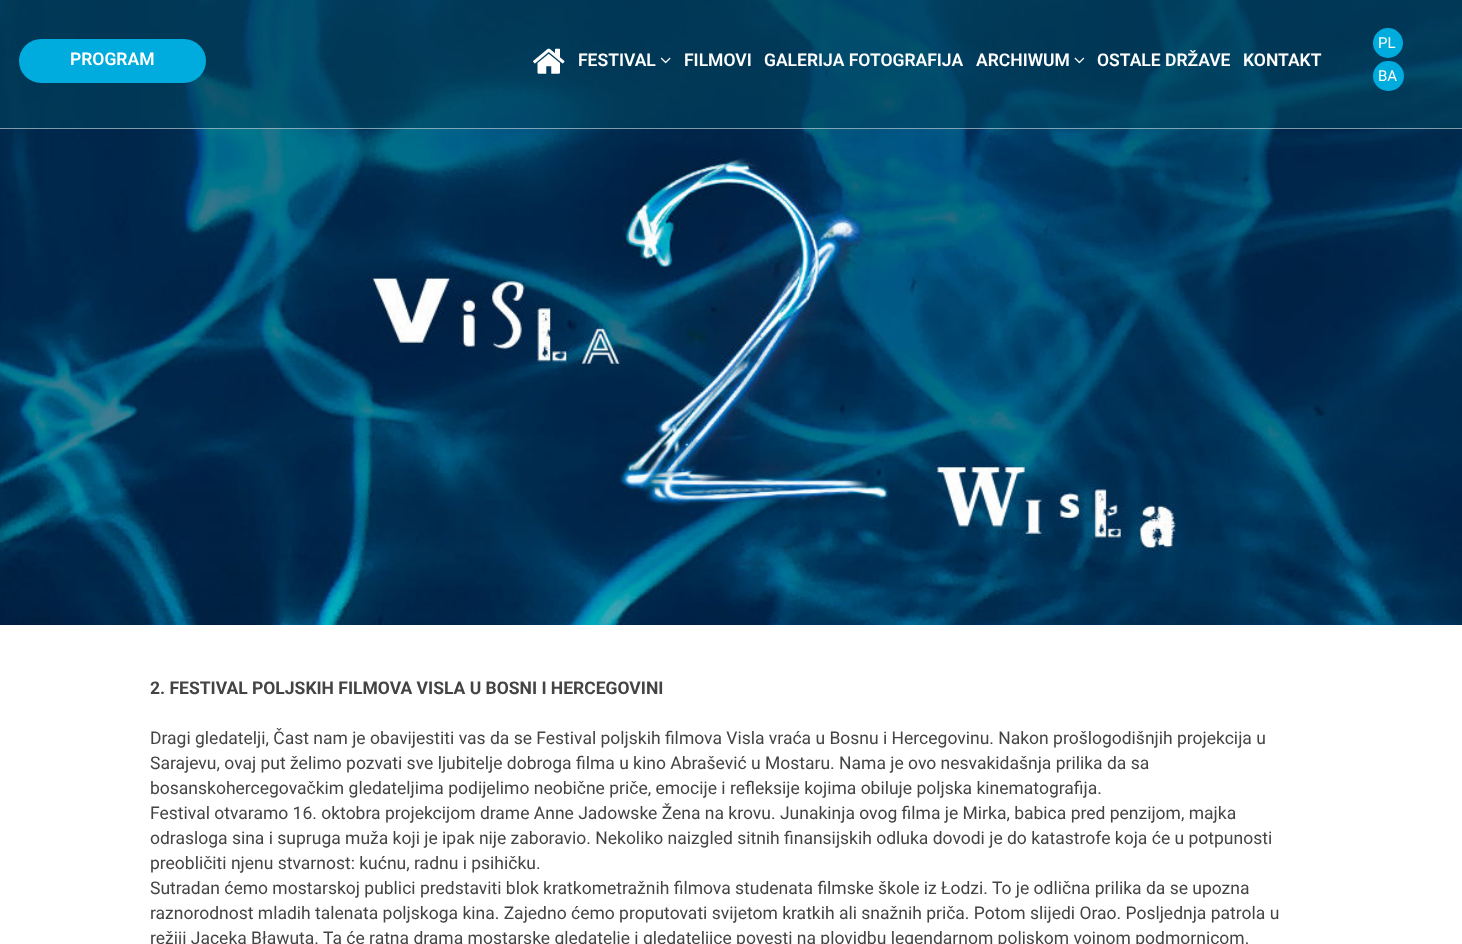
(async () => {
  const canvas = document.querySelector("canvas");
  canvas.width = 1462;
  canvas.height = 944;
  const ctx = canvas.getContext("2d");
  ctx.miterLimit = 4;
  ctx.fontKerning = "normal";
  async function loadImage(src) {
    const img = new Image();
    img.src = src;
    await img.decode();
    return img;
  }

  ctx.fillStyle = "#ffffff";
  ctx.fillRect(0, 0, 1462, 944);
  ctx.drawImage(await loadImage("img/1.png"), 0, 0, 1462, 625);
  ctx.fillStyle = "rgba(1, 66, 94, 0.6)";
  ctx.fillRect(0, 0, 1462, 129);
  ctx.fillStyle = "rgba(255, 255, 255, 0.5)";
  ctx.fillRect(0, 128, 1462, 1);
  ctx.fillStyle = "#00abdd";
  ctx.beginPath();
  ctx.roundRect(19, 39, 187, 44, 22);
  ctx.fill();
  ctx.drawImage(await loadImage("img/2.png"), 533, 48, 32, 26);
  ctx.drawImage(await loadImage("img/3.png"), 660, 57, 11, 7);
  ctx.drawImage(await loadImage("img/4.png"), 1074, 57, 11, 7);
  ctx.beginPath();
  ctx.arc(1388, 43, 15, 0, Math.PI * 2);
  ctx.fill();
  ctx.beginPath();
  ctx.roundRect(1373, 61, 31, 30, 15);
  ctx.fill();
  ctx.font = "600 17.5px Roboto";
  ctx.fillStyle = "#ffffff";
  for (const [text, x, y] of [
    ["PROGRAM", 70, 65],
    ["FESTIVAL", 578, 66],
    ["FILMOVI", 684, 66],
    ["GALERIJA FOTOGRAFIJA", 764, 66],
    ["ARCHIWUM", 976, 66],
    ["OSTALE DRŽAVE", 1097, 66],
    ["KONTAKT", 1243, 66],
  ]) {
    ctx.fillText(text, x, y);
  }
  ctx.font = "15px Roboto";
  ctx.fillText("PL", 1378, 48);
  ctx.fillText("BA", 1378, 81);
  ctx.font = "bold 17.5px Roboto";
  ctx.fillStyle = "#444444";
  ctx.fillText("2. FESTIVAL POLJSKIH FILMOVA VISLA U BOSNI I HERCEGOVINI", 150, 694);
  ctx.font = "17.5px Roboto";
  for (const [text, x, y] of [
    ["Dragi gledatelji, Čast nam je obavijestiti vas da se Festival poljskih filmova Visla vraća u Bosnu i Hercegovinu. Nakon prošlogodišnjih projekcija u", 150, 744],
    ["Sarajevu, ovaj put želimo pozvati sve ljubitelje dobroga filma u kino Abrašević u Mostaru. Nama je ovo nesvakidašnja prilika da sa", 150, 769],
    ["bosanskohercegovačkim gledateljima podijelimo neobične priče, emocije i refleksije kojima obiluje poljska kinematografija.", 150, 794],
    ["Festival otvaramo 16. oktobra projekcijom drame Anne Jadowske Žena na krovu. Junakinja ovog filma je Mirka, babica pred penzijom, majka", 150, 819],
    ["odrasloga sina i supruga muža koji je ipak nije zaboravio. Nekoliko naizgled sitnih finansijskih odluka dovodi je do katastrofe koja će u potpunosti", 150, 844],
    ["preobličiti njenu stvarnost: kućnu, radnu i psihičku.", 150, 869],
    ["Sutradan ćemo mostarskoj publici predstaviti blok kratkometražnih filmova studenata filmske škole iz Łodzi. To je odlična prilika da se upozna", 150, 894],
    ["raznorodnost mladih talenata poljskoga kina. Zajedno ćemo proputovati svijetom kratkih ali snažnih priča. Potom slijedi Orao. Posljednja patrola u", 150, 919],
    ["režiji Jaceka Bławuta. Ta će ratna drama mostarske gledatelje i gledateljice povesti na plovidbu legendarnom poljskom vojnom podmornicom.", 150, 944],
  ]) {
    ctx.fillText(text, x, y);
  }
})();
